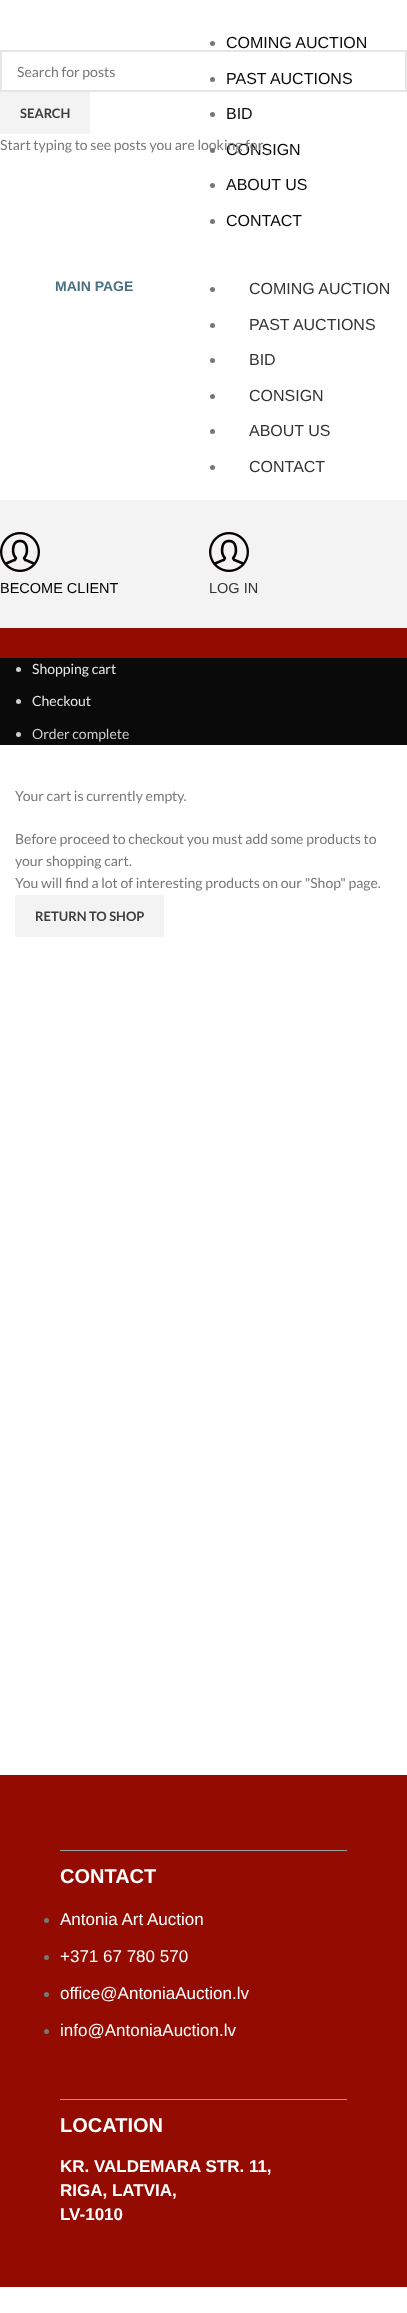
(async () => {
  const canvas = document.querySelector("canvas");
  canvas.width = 407;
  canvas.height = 2313;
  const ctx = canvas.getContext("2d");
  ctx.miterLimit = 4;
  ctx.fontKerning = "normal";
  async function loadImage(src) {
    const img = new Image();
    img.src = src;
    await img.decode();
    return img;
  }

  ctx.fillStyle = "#ffffff";
  ctx.fillRect(0, 0, 407, 2313);
  ctx.fillStyle = "#777777";
  ctx.beginPath();
  ctx.arc(212.5, 43.5, 2.5, 0, Math.PI * 2);
  ctx.fill();
  ctx.beginPath();
  ctx.arc(212.5, 79.5, 2.5, 0, Math.PI * 2);
  ctx.fill();
  ctx.beginPath();
  ctx.arc(212.5, 114.5, 2.5, 0, Math.PI * 2);
  ctx.fill();
  ctx.beginPath();
  ctx.arc(212.5, 150.5, 2.5, 0, Math.PI * 2);
  ctx.fill();
  ctx.beginPath();
  ctx.arc(212.5, 185.5, 2.5, 0, Math.PI * 2);
  ctx.fill();
  ctx.beginPath();
  ctx.arc(212.5, 221.5, 2.5, 0, Math.PI * 2);
  ctx.fill();
  ctx.beginPath();
  ctx.arc(212.5, 289.5, 2.5, 0, Math.PI * 2);
  ctx.fill();
  ctx.beginPath();
  ctx.arc(212.5, 325.5, 2.5, 0, Math.PI * 2);
  ctx.fill();
  ctx.beginPath();
  ctx.arc(212.5, 360.5, 2.5, 0, Math.PI * 2);
  ctx.fill();
  ctx.beginPath();
  ctx.arc(212.5, 396.5, 2.5, 0, Math.PI * 2);
  ctx.fill();
  ctx.beginPath();
  ctx.arc(212.5, 431.5, 2.5, 0, Math.PI * 2);
  ctx.fill();
  ctx.beginPath();
  ctx.arc(212.5, 467.5, 2.5, 0, Math.PI * 2);
  ctx.fill();
  ctx.fillStyle = "#f4f3f3";
  ctx.fillRect(0, 500, 407, 128);
  ctx.drawImage(await loadImage("img/1.png"), 0, 532, 40, 40);
  ctx.drawImage(await loadImage("img/1.png"), 209, 532, 40, 40);
  ctx.fillStyle = "#940b01";
  ctx.fillRect(0, 628, 407, 30);
  ctx.fillStyle = "#0a0a0a";
  ctx.fillRect(0, 658, 407, 87);
  ctx.fillStyle = "#cecece";
  ctx.beginPath();
  ctx.arc(18.5, 669.5, 2.5, 0, Math.PI * 2);
  ctx.fill();
  ctx.beginPath();
  ctx.arc(18.5, 701.5, 2.5, 0, Math.PI * 2);
  ctx.fill();
  ctx.beginPath();
  ctx.arc(18.5, 734.5, 2.5, 0, Math.PI * 2);
  ctx.fill();
  for (const [x, y, w, h, color] of [
    [15, 895, 149, 42, "#f3f3f3"],
    [0, 1775, 407, 512, "#940b01"],
    [60, 1850, 287, 1, "#9f9f9f"],
  ]) {
    ctx.fillStyle = color;
    ctx.fillRect(x, y, w, h);
  }
  ctx.fillStyle = "#777777";
  ctx.beginPath();
  ctx.arc(46.5, 1920.5, 2.5, 0, Math.PI * 2);
  ctx.fill();
  ctx.beginPath();
  ctx.arc(46.5, 1957.5, 2.5, 0, Math.PI * 2);
  ctx.fill();
  ctx.beginPath();
  ctx.arc(46.5, 1994.5, 2.5, 0, Math.PI * 2);
  ctx.fill();
  ctx.beginPath();
  ctx.arc(46.5, 2031.5, 2.5, 0, Math.PI * 2);
  ctx.fill();
  ctx.fillStyle = "#9f9f9f";
  ctx.fillRect(60, 2099, 287, 1);
  ctx.strokeStyle = "#e6e6e6";
  ctx.lineWidth = 2;
  ctx.strokeRect(1, 51, 405, 40);
  ctx.fillStyle = "#f3f3f3";
  ctx.fillRect(0, 92, 90, 42);
  ctx.font = "bold 14px Liberation Sans";
  ctx.fillStyle = "#487182";
  ctx.fillText("MAIN PAGE", 55, 291);
  ctx.font = "16px Liberation Sans";
  ctx.fillStyle = "#0a0a0a";
  for (const [text, x, y] of [
    ["COMING AUCTION", 226, 48],
    ["PAST AUCTIONS", 226, 84],
    ["BID", 226, 119],
    ["CONSIGN", 226, 155],
    ["ABOUT US", 226, 190],
    ["CONTACT", 226, 226],
  ]) {
    ctx.fillText(text, x, y);
  }
  ctx.fillStyle = "#333333";
  for (const [text, x, y] of [
    ["COMING AUCTION", 249, 294],
    ["PAST AUCTIONS", 249, 330],
    ["BID", 249, 365],
    ["CONSIGN", 249, 401],
    ["ABOUT US", 249, 436],
    ["CONTACT", 249, 472],
  ]) {
    ctx.fillText(text, x, y);
  }
  ctx.font = "14.5px Liberation Sans";
  ctx.fillStyle = "#000000";
  ctx.fillText("BECOME CLIENT", 0, 593);
  ctx.fillStyle = "#333333";
  ctx.fillText("LOG IN", 209, 593);
  ctx.font = "14px Lato";
  ctx.fillStyle = "#e7e7e7";
  ctx.fillText("Shopping cart", 32, 674);
  ctx.fillText("Checkout", 32, 706);
  ctx.fillStyle = "#cecece";
  ctx.fillText("Order complete", 32, 739);
  ctx.fillStyle = "#777777";
  for (const [text, x, y] of [
    ["Your cart is currently empty.", 15, 801],
    ["Before proceed to checkout you must add some products to", 15, 844],
    ["your shopping cart.", 15, 866],
    ["You will find a lot of interesting products on our \"Shop\" page.", 15, 888],
  ]) {
    ctx.fillText(text, x, y);
  }
  ctx.font = "bold 13px Lato";
  ctx.fillStyle = "#3e3e3e";
  ctx.fillText("RETURN TO SHOP", 35, 921);
  ctx.font = "bold 20px Liberation Sans";
  ctx.fillStyle = "#ffffff";
  ctx.fillText("CONTACT", 60, 1883);
  ctx.font = "17px Liberation Sans";
  for (const [text, x, y] of [
    ["Antonia Art Auction", 60, 1925],
    ["+371 67 780 570", 60, 1962],
    ["office@AntoniaAuction.lv", 60, 1999],
    ["info@AntoniaAuction.lv", 60, 2036],
  ]) {
    ctx.fillText(text, x, y);
  }
  ctx.font = "bold 20px Liberation Sans";
  ctx.fillText("LOCATION", 60, 2132);
  ctx.font = "bold 17px Liberation Sans";
  for (const [text, x, y] of [
    ["KR. VALDEMARA STR. 11,", 60, 2172],
    ["RIGA, LATVIA,", 60, 2196],
    ["LV-1010", 60, 2220],
  ]) {
    ctx.fillText(text, x, y);
  }
  ctx.font = "14px Lato";
  ctx.fillStyle = "#777777";
  ctx.fillText("Search for posts", 17, 77);
  ctx.font = "bold 13px Lato";
  ctx.fillStyle = "#3e3e3e";
  ctx.fillText("SEARCH", 20, 118);
  ctx.font = "14px Lato";
  ctx.fillStyle = "#777777";
  ctx.fillText("Start typing to see posts you are looking for.", 0, 150);
})();
